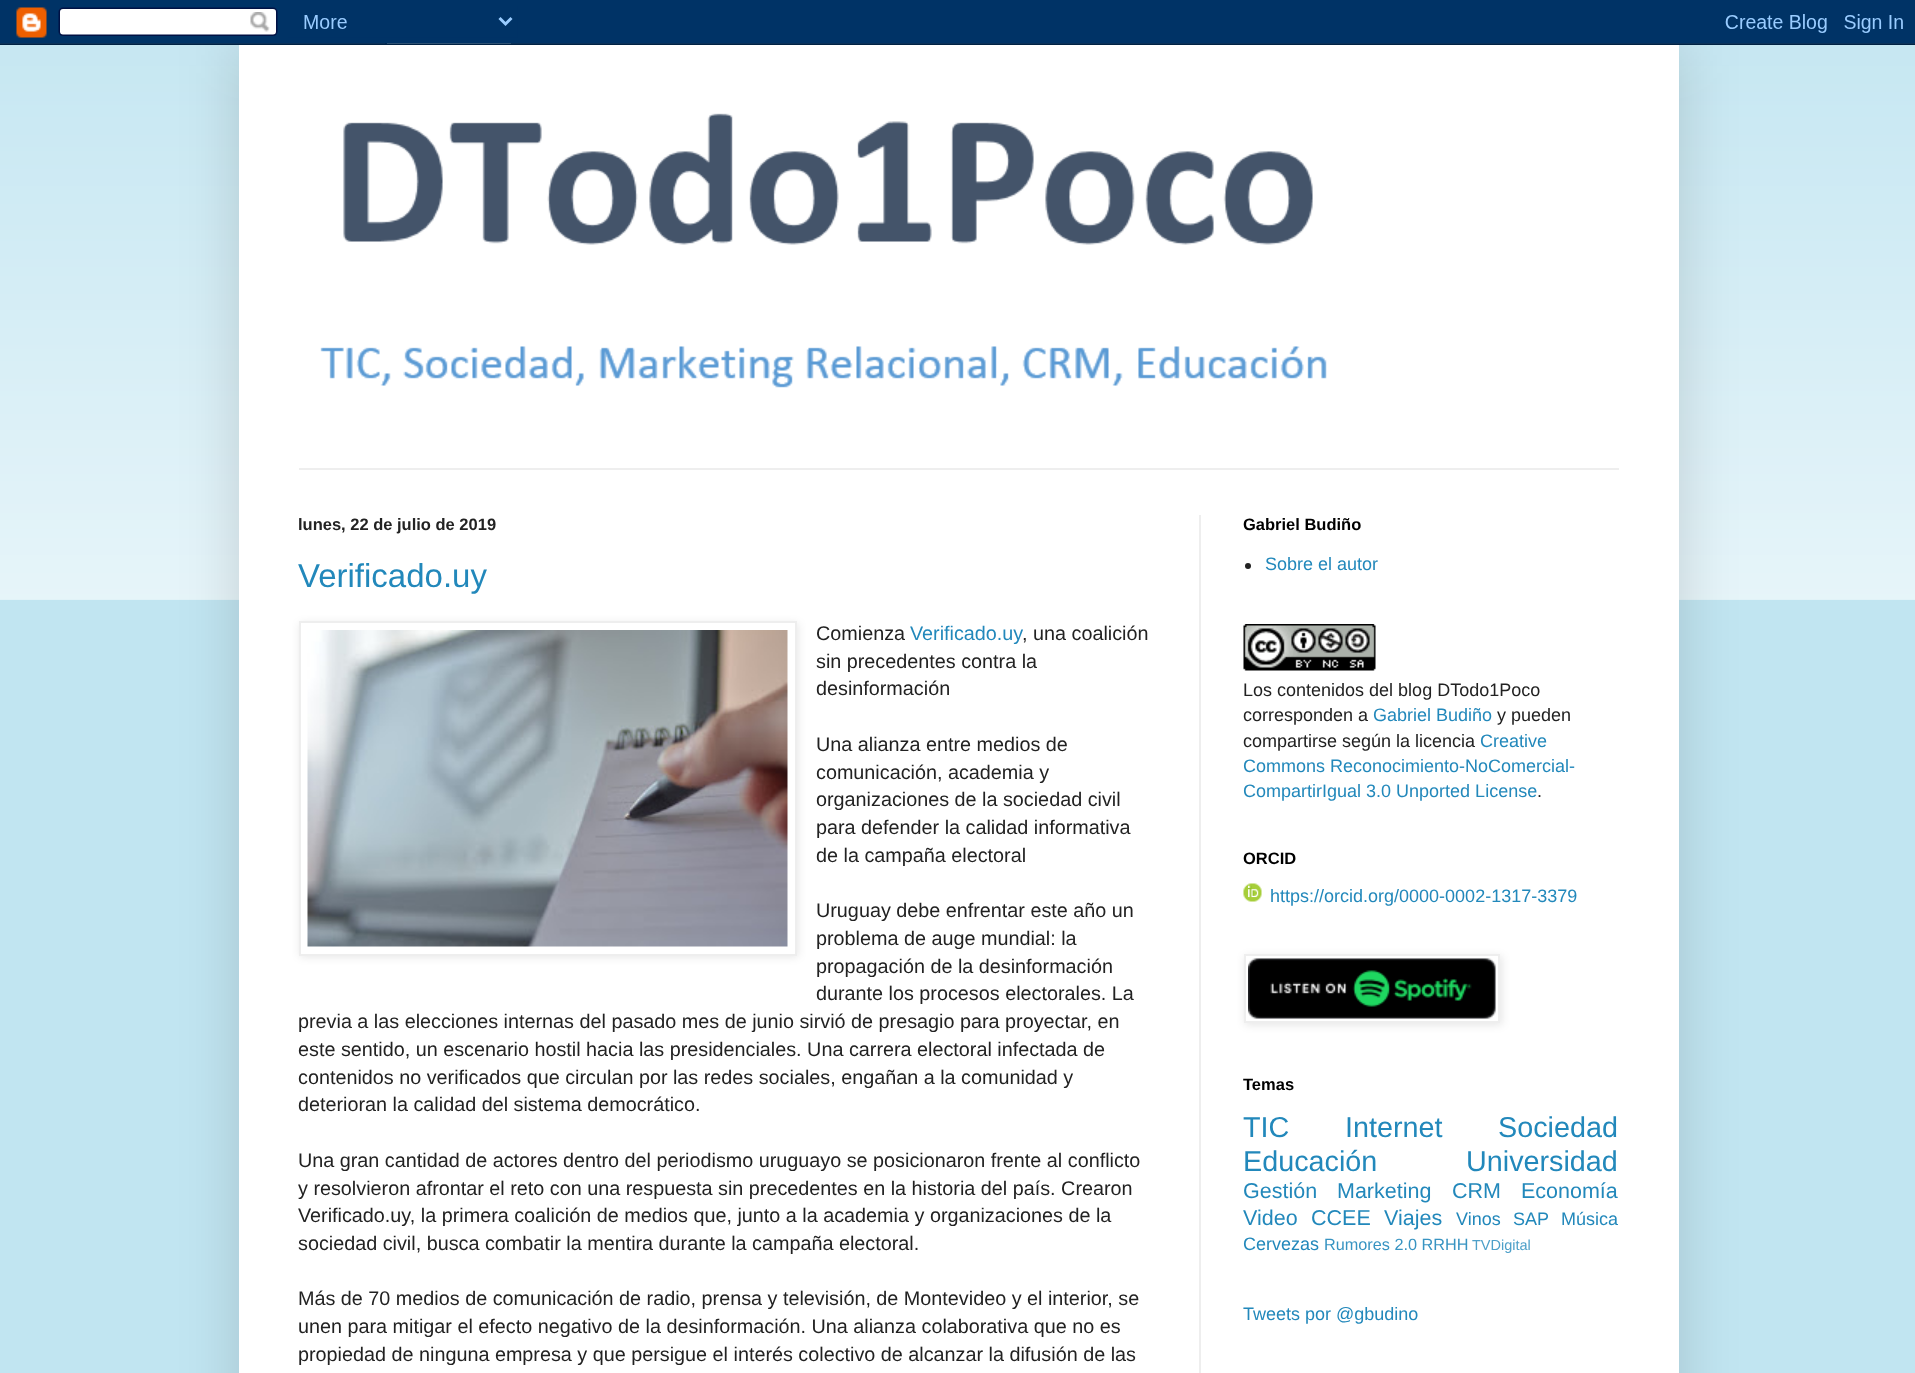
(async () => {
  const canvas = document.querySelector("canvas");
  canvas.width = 1915;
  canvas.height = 1373;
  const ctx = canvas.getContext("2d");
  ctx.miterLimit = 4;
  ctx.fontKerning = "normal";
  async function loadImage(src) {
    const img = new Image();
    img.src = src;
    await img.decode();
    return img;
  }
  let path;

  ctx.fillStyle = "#c1e5f1";
  ctx.fillRect(0, 0, 1915, 1373);
  ctx.drawImage(await loadImage("img/2.png"), 0, 43, 1915, 557);
  ctx.fillStyle = "rgba(0, 0, 0, 0.15)";
  ctx.filter = "blur(30px)";
  ctx.beginPath();
  ctx.rect(239, 45, 1440, 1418);
  ctx.fill();
  ctx.filter = "none";
  ctx.drawImage(await loadImage("img/1.png"), 0, 0, 1915, 45);
  ctx.fillStyle = "#ffffff";
  ctx.fillRect(239, 45, 1440, 1328);
  ctx.drawImage(await loadImage("img/3.png"), 320, 113, 1007, 275);
  ctx.fillStyle = "#eeeeee";
  ctx.fillRect(299, 468, 1320, 2);
  ctx.fillRect(1199, 515, 2, 858);
  ctx.fillStyle = "rgba(0, 0, 0, 0.1)";
  ctx.filter = "blur(4px)";
  ctx.beginPath();
  ctx.rect(300, 623, 498, 334);
  ctx.fill();
  ctx.filter = "none";
  ctx.fillStyle = "#ffffff";
  ctx.beginPath();
  ctx.rect(300, 622, 496, 333);
  ctx.fill();
  ctx.strokeStyle = "#eeeeee";
  ctx.lineWidth = 2;
  ctx.stroke();
  ctx.drawImage(await loadImage("img/4.png"), 307, 630, 481, 317);
  ctx.fillStyle = "#222222";
  ctx.beginPath();
  ctx.arc(1248, 566, 3, 0, Math.PI * 2);
  ctx.fill();
  ctx.drawImage(await loadImage("img/5.png"), 1243, 624, 133, 47);
  ctx.drawImage(await loadImage("img/6.png"), 1243, 883, 19, 19);
  ctx.save();
  path = new Path2D("M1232 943H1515V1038H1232ZM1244 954H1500V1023H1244Z");
  ctx.clip(path, "evenodd");
  ctx.fillStyle = "rgba(0, 0, 0, 0.1)";
  ctx.filter = "blur(4px)";
  ctx.beginPath();
  ctx.rect(1245, 956, 257, 69);
  ctx.fill();
  ctx.filter = "none";
  ctx.restore();
  ctx.strokeRect(1245, 955, 254, 67);
  ctx.drawImage(await loadImage("img/7.png"), 1248, 958, 248, 61);
  ctx.font = "bold 16.5px Liberation Sans";
  ctx.fillText("lunes, 22 de julio de 2019", 298, 530);
  ctx.font = "33px Liberation Sans";
  ctx.fillStyle = "#2288bb";
  ctx.fillText("Verificado.uy", 298, 587);
  ctx.font = "19.8px Liberation Sans";
  ctx.fillStyle = "#222222";
  ctx.fillText("Comienza", 816, 640);
  ctx.fillStyle = "#2288bb";
  ctx.fillText("Verificado.uy", 910, 640);
  ctx.fillStyle = "#222222";
  for (const [text, x, y] of [
    [", una coalición", 1022, 640],
    ["sin precedentes contra la", 816, 668],
    ["desinformación", 816, 695],
    ["Una alianza entre medios de", 816, 751],
    ["comunicación, academia y", 816, 779],
    ["organizaciones de la sociedad civil", 816, 806],
    ["para defender la calidad informativa", 816, 834],
    ["de la campaña electoral", 816, 862],
    ["Uruguay debe enfrentar este año un", 816, 917],
    ["problema de auge mundial: la", 816, 945],
    ["propagación de la desinformación", 816, 973],
    ["durante los procesos electorales. La", 816, 1000],
    ["previa a las elecciones internas del pasado mes de junio sirvió de presagio para proyectar, en", 298, 1028],
    ["este sentido, un escenario hostil hacia las presidenciales. Una carrera electoral infectada de", 298, 1056],
    ["contenidos no verificados que circulan por las redes sociales, engañan a la comunidad y", 298, 1084],
    ["deterioran la calidad del sistema democrático.", 298, 1111],
    ["Una gran cantidad de actores dentro del periodismo uruguayo se posicionaron frente al conflicto", 298, 1167],
    ["y resolvieron afrontar el reto con una respuesta sin precedentes en la historia del país. Crearon", 298, 1195],
    ["Verificado.uy, la primera coalición de medios que, junto a la academia y organizaciones de la", 298, 1222],
    ["sociedad civil, busca combatir la mentira durante la campaña electoral.", 298, 1250],
    ["Más de 70 medios de comunicación de radio, prensa y televisión, de Montevideo y el interior, se", 298, 1305],
    ["unen para mitigar el efecto negativo de la desinformación. Una alianza colaborativa que no es", 298, 1333],
    ["propiedad de ninguna empresa y que persigue el interés colectivo de alcanzar la difusión de las", 298, 1361],
  ]) {
    ctx.fillText(text, x, y);
  }
  ctx.font = "bold 16.5px Liberation Sans";
  ctx.fillStyle = "#000000";
  ctx.fillText("Gabriel Budiño", 1243, 530);
  ctx.font = "18px Liberation Sans";
  ctx.fillStyle = "#2288bb";
  ctx.fillText("Sobre el autor", 1265, 570);
  ctx.fillStyle = "#222222";
  ctx.fillText("Los contenidos del blog DTodo1Poco", 1243, 696);
  ctx.fillText("corresponden a", 1243, 721);
  ctx.fillStyle = "#2288bb";
  ctx.fillText("Gabriel Budiño", 1373, 721);
  ctx.fillStyle = "#222222";
  ctx.fillText("y pueden", 1497, 721);
  ctx.fillText("compartirse según la licencia", 1243, 747);
  ctx.fillStyle = "#2288bb";
  for (const [text, x, y] of [
    ["Creative", 1480, 747],
    ["Commons Reconocimiento-NoComercial-", 1243, 772],
    ["CompartirIgual 3.0 Unported License", 1243, 797],
  ]) {
    ctx.fillText(text, x, y);
  }
  ctx.fillStyle = "#222222";
  ctx.fillText(".", 1537, 797);
  ctx.font = "bold 16.5px Liberation Sans";
  ctx.fillStyle = "#000000";
  ctx.fillText("ORCID", 1243, 864);
  ctx.font = "18px Liberation Sans";
  ctx.fillStyle = "#2288bb";
  ctx.fillText("https://orcid.org/0000-0002-1317-3379", 1270, 902);
  ctx.font = "bold 16.5px Liberation Sans";
  ctx.fillStyle = "#000000";
  ctx.fillText("Temas", 1243, 1090);
  ctx.font = "28.75px Liberation Sans";
  ctx.fillStyle = "#2288bb";
  for (const [text, x, y] of [
    ["TIC", 1243, 1137],
    ["Internet", 1345, 1137],
    ["Sociedad", 1498, 1137],
    ["Educación", 1243, 1171],
    ["Universidad", 1466, 1171],
  ]) {
    ctx.fillText(text, x, y);
  }
  ctx.font = "21.5px Liberation Sans";
  for (const [text, x, y] of [
    ["Gestión", 1243, 1198],
    ["Marketing", 1337, 1198],
    ["CRM", 1452, 1198],
    ["Economía", 1521, 1198],
    ["Video", 1243, 1225],
    ["CCEE", 1311, 1225],
    ["Viajes", 1384, 1225],
  ]) {
    ctx.fillText(text, x, y);
  }
  ctx.font = "18px Liberation Sans";
  for (const [text, x, y] of [
    ["Vinos", 1456, 1225],
    ["SAP", 1513, 1225],
    ["Música", 1561, 1225],
    ["Cervezas", 1243, 1250],
  ]) {
    ctx.fillText(text, x, y);
  }
  ctx.font = "16.25px Liberation Sans";
  ctx.fillStyle = "#3894c2";
  ctx.fillText("Rumores 2.0 RRHH", 1324, 1250);
  ctx.font = "14.5px Liberation Sans";
  ctx.fillStyle = "#4ea0c9";
  ctx.fillText("TVDigital", 1472, 1250);
  ctx.font = "18px Liberation Sans";
  ctx.fillStyle = "#2288bb";
  ctx.fillText("Tweets por @gbudino", 1243, 1320);
})();
